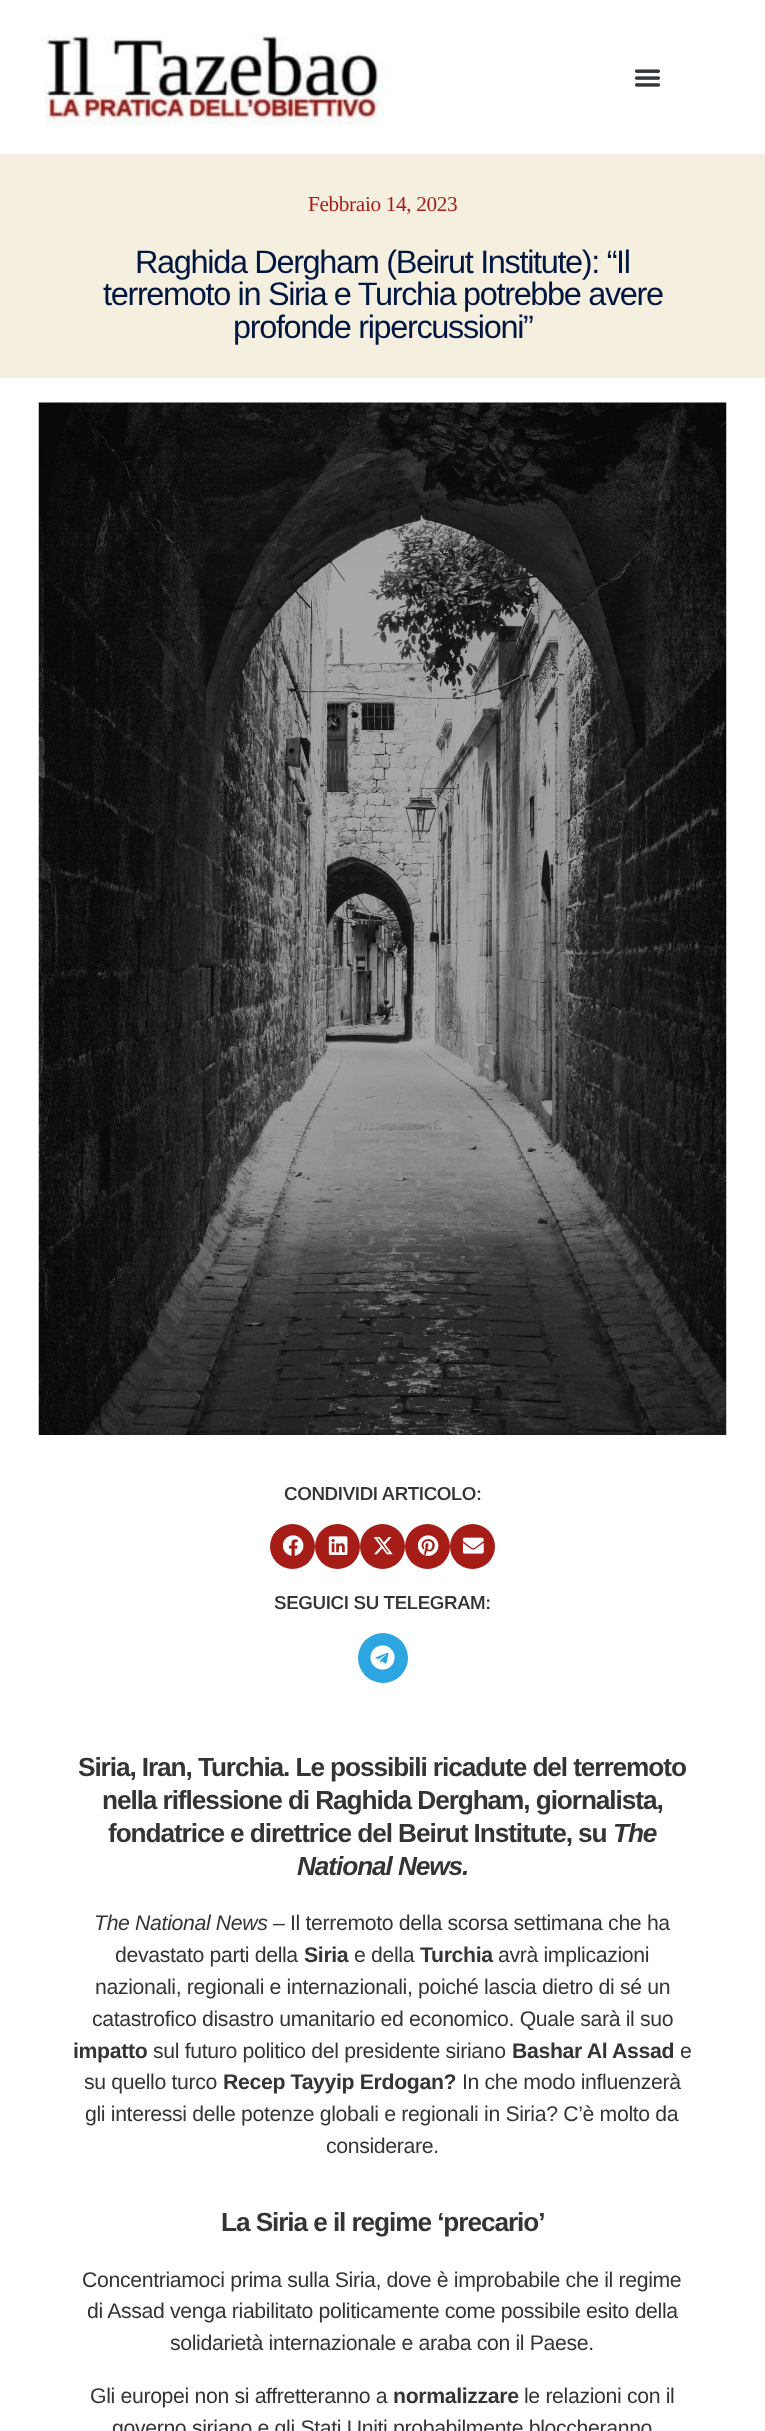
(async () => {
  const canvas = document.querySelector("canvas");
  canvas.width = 765;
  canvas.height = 2431;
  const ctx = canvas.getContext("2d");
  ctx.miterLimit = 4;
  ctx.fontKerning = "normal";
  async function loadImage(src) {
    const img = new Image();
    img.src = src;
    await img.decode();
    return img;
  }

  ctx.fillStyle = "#ffffff";
  ctx.fillRect(0, 0, 765, 2431);
  ctx.drawImage(await loadImage("img/1.png"), 44, 35, 341, 91);
  ctx.drawImage(await loadImage("img/2.png"), 634, 69, 27, 18);
  ctx.fillStyle = "#f5efe0";
  ctx.fillRect(0, 154, 765, 224);
  ctx.drawImage(await loadImage("img/3.png"), 38, 402, 689, 1033);
  ctx.fillStyle = "#a51d16";
  ctx.beginPath();
  ctx.arc(292.5, 1546.5, 22.5, 0, Math.PI * 2);
  ctx.fill();
  ctx.drawImage(await loadImage("img/4.png"), 283, 1535, 21, 21);
  ctx.beginPath();
  ctx.arc(337.5, 1546.5, 22.5, 0, Math.PI * 2);
  ctx.fill();
  ctx.drawImage(await loadImage("img/5.png"), 328, 1536, 20, 19);
  ctx.beginPath();
  ctx.arc(382.5, 1546.5, 22.5, 0, Math.PI * 2);
  ctx.fill();
  ctx.drawImage(await loadImage("img/6.png"), 373, 1537, 20, 18);
  ctx.beginPath();
  ctx.arc(427.5, 1546.5, 22.5, 0, Math.PI * 2);
  ctx.fill();
  ctx.drawImage(await loadImage("img/7.png"), 418, 1535, 21, 21);
  ctx.beginPath();
  ctx.arc(472.5, 1546.5, 22.5, 0, Math.PI * 2);
  ctx.fill();
  ctx.drawImage(await loadImage("img/8.png"), 463, 1537, 21, 17);
  ctx.fillStyle = "#2ca5e0";
  ctx.beginPath();
  ctx.arc(383, 1658, 25, 0, Math.PI * 2);
  ctx.fill();
  ctx.drawImage(await loadImage("img/9.png"), 370, 1645, 25, 25);
  ctx.letterSpacing = "-0.35px";
  ctx.font = "21.25px Tinos";
  ctx.fillStyle = "#a51d16";
  ctx.fillText("Febbraio 14, 2023", 308, 211);
  ctx.letterSpacing = "-1.35px";
  ctx.font = "32.5px Arimo";
  ctx.fillStyle = "#011640";
  for (const [text, x, y] of [
    ["Raghida Dergham (Beirut Institute): “Il", 135, 273],
    ["terremoto in Siria e Turchia potrebbe avere", 103, 305],
    ["profonde ripercussioni”", 233, 338],
  ]) {
    ctx.fillText(text, x, y);
  }
  ctx.letterSpacing = "-0.35px";
  ctx.font = "600 18.75px Arimo";
  ctx.fillStyle = "#343434";
  ctx.fillText("CONDIVIDI ARTICOLO:", 284, 1500);
  ctx.fillText("SEGUICI SU TELEGRAM:", 274, 1609);
  ctx.letterSpacing = "-1.1px";
  ctx.font = "bold 26.25px Arimo";
  for (const [text, x, y] of [
    ["Siria, Iran, Turchia. Le possibili ricadute del terremoto", 78, 1776],
    ["nella riflessione di Raghida Dergham, giornalista,", 102, 1809],
    ["fondatrice e direttrice del Beirut Institute, su", 108, 1842],
  ]) {
    ctx.fillText(text, x, y);
  }
  ctx.font = "italic bold 26.25px Arimo";
  ctx.fillText("The", 613, 1842);
  ctx.fillText("National News.", 297, 1875);
  ctx.letterSpacing = "-0.35px";
  ctx.font = "italic 21.25px Arimo";
  ctx.fillText("The National News", 94, 1930);
  ctx.font = "21.25px Arimo";
  ctx.fillText("– Il terremoto della scorsa settimana che ha", 273, 1930);
  ctx.fillText("devastato parti della", 115, 1962);
  ctx.font = "bold 21.25px Arimo";
  ctx.fillText("Siria", 304, 1962);
  ctx.font = "21.25px Arimo";
  ctx.fillText("e della", 354, 1962);
  ctx.font = "bold 21.25px Arimo";
  ctx.fillText("Turchia", 420, 1962);
  ctx.font = "21.25px Arimo";
  for (const [text, x, y] of [
    ["avrà implicazioni", 498, 1962],
    ["nazionali, regionali e internazionali, poiché lascia dietro di sé un", 95, 1994],
    ["catastrofico disastro umanitario ed economico. Quale sarà il suo", 92, 2026],
  ]) {
    ctx.fillText(text, x, y);
  }
  ctx.font = "bold 21.25px Arimo";
  ctx.fillText("impatto", 73, 2058);
  ctx.font = "21.25px Arimo";
  ctx.fillText("sul futuro politico del presidente siriano", 153, 2058);
  ctx.font = "bold 21.25px Arimo";
  ctx.fillText("Bashar Al Assad", 512, 2058);
  ctx.font = "21.25px Arimo";
  ctx.fillText("e", 680, 2058);
  ctx.fillText("su quello turco", 84, 2089);
  ctx.font = "bold 21.25px Arimo";
  ctx.fillText("Recep Tayyip Erdogan?", 223, 2089);
  ctx.font = "21.25px Arimo";
  for (const [text, x, y] of [
    ["In che modo influenzerà", 462, 2089],
    ["gli interessi delle potenze globali e regionali in Siria? C’è molto da", 85, 2121],
    ["considerare.", 326, 2153],
  ]) {
    ctx.fillText(text, x, y);
  }
  ctx.letterSpacing = "-1.1px";
  ctx.font = "bold 26.25px Arimo";
  ctx.fillText("La Siria e il regime ‘precario’", 221, 2231);
  ctx.letterSpacing = "-0.35px";
  ctx.font = "21.25px Arimo";
  for (const [text, x, y] of [
    ["Concentriamoci prima sulla Siria, dove è improbabile che il regime", 82, 2287],
    ["di Assad venga riabilitato politicamente come possibile esito della", 87, 2318],
    ["solidarietà internazionale e araba con il Paese.", 170, 2350],
    ["Gli europei non si affretteranno a", 90, 2403],
  ]) {
    ctx.fillText(text, x, y);
  }
  ctx.font = "bold 21.25px Arimo";
  ctx.fillText("normalizzare", 393, 2403);
  ctx.font = "21.25px Arimo";
  ctx.fillText("le relazioni con il", 524, 2403);
  ctx.fillText("governo siriano e gli Stati Uniti probabilmente bloccheranno", 112, 2435);
})();
